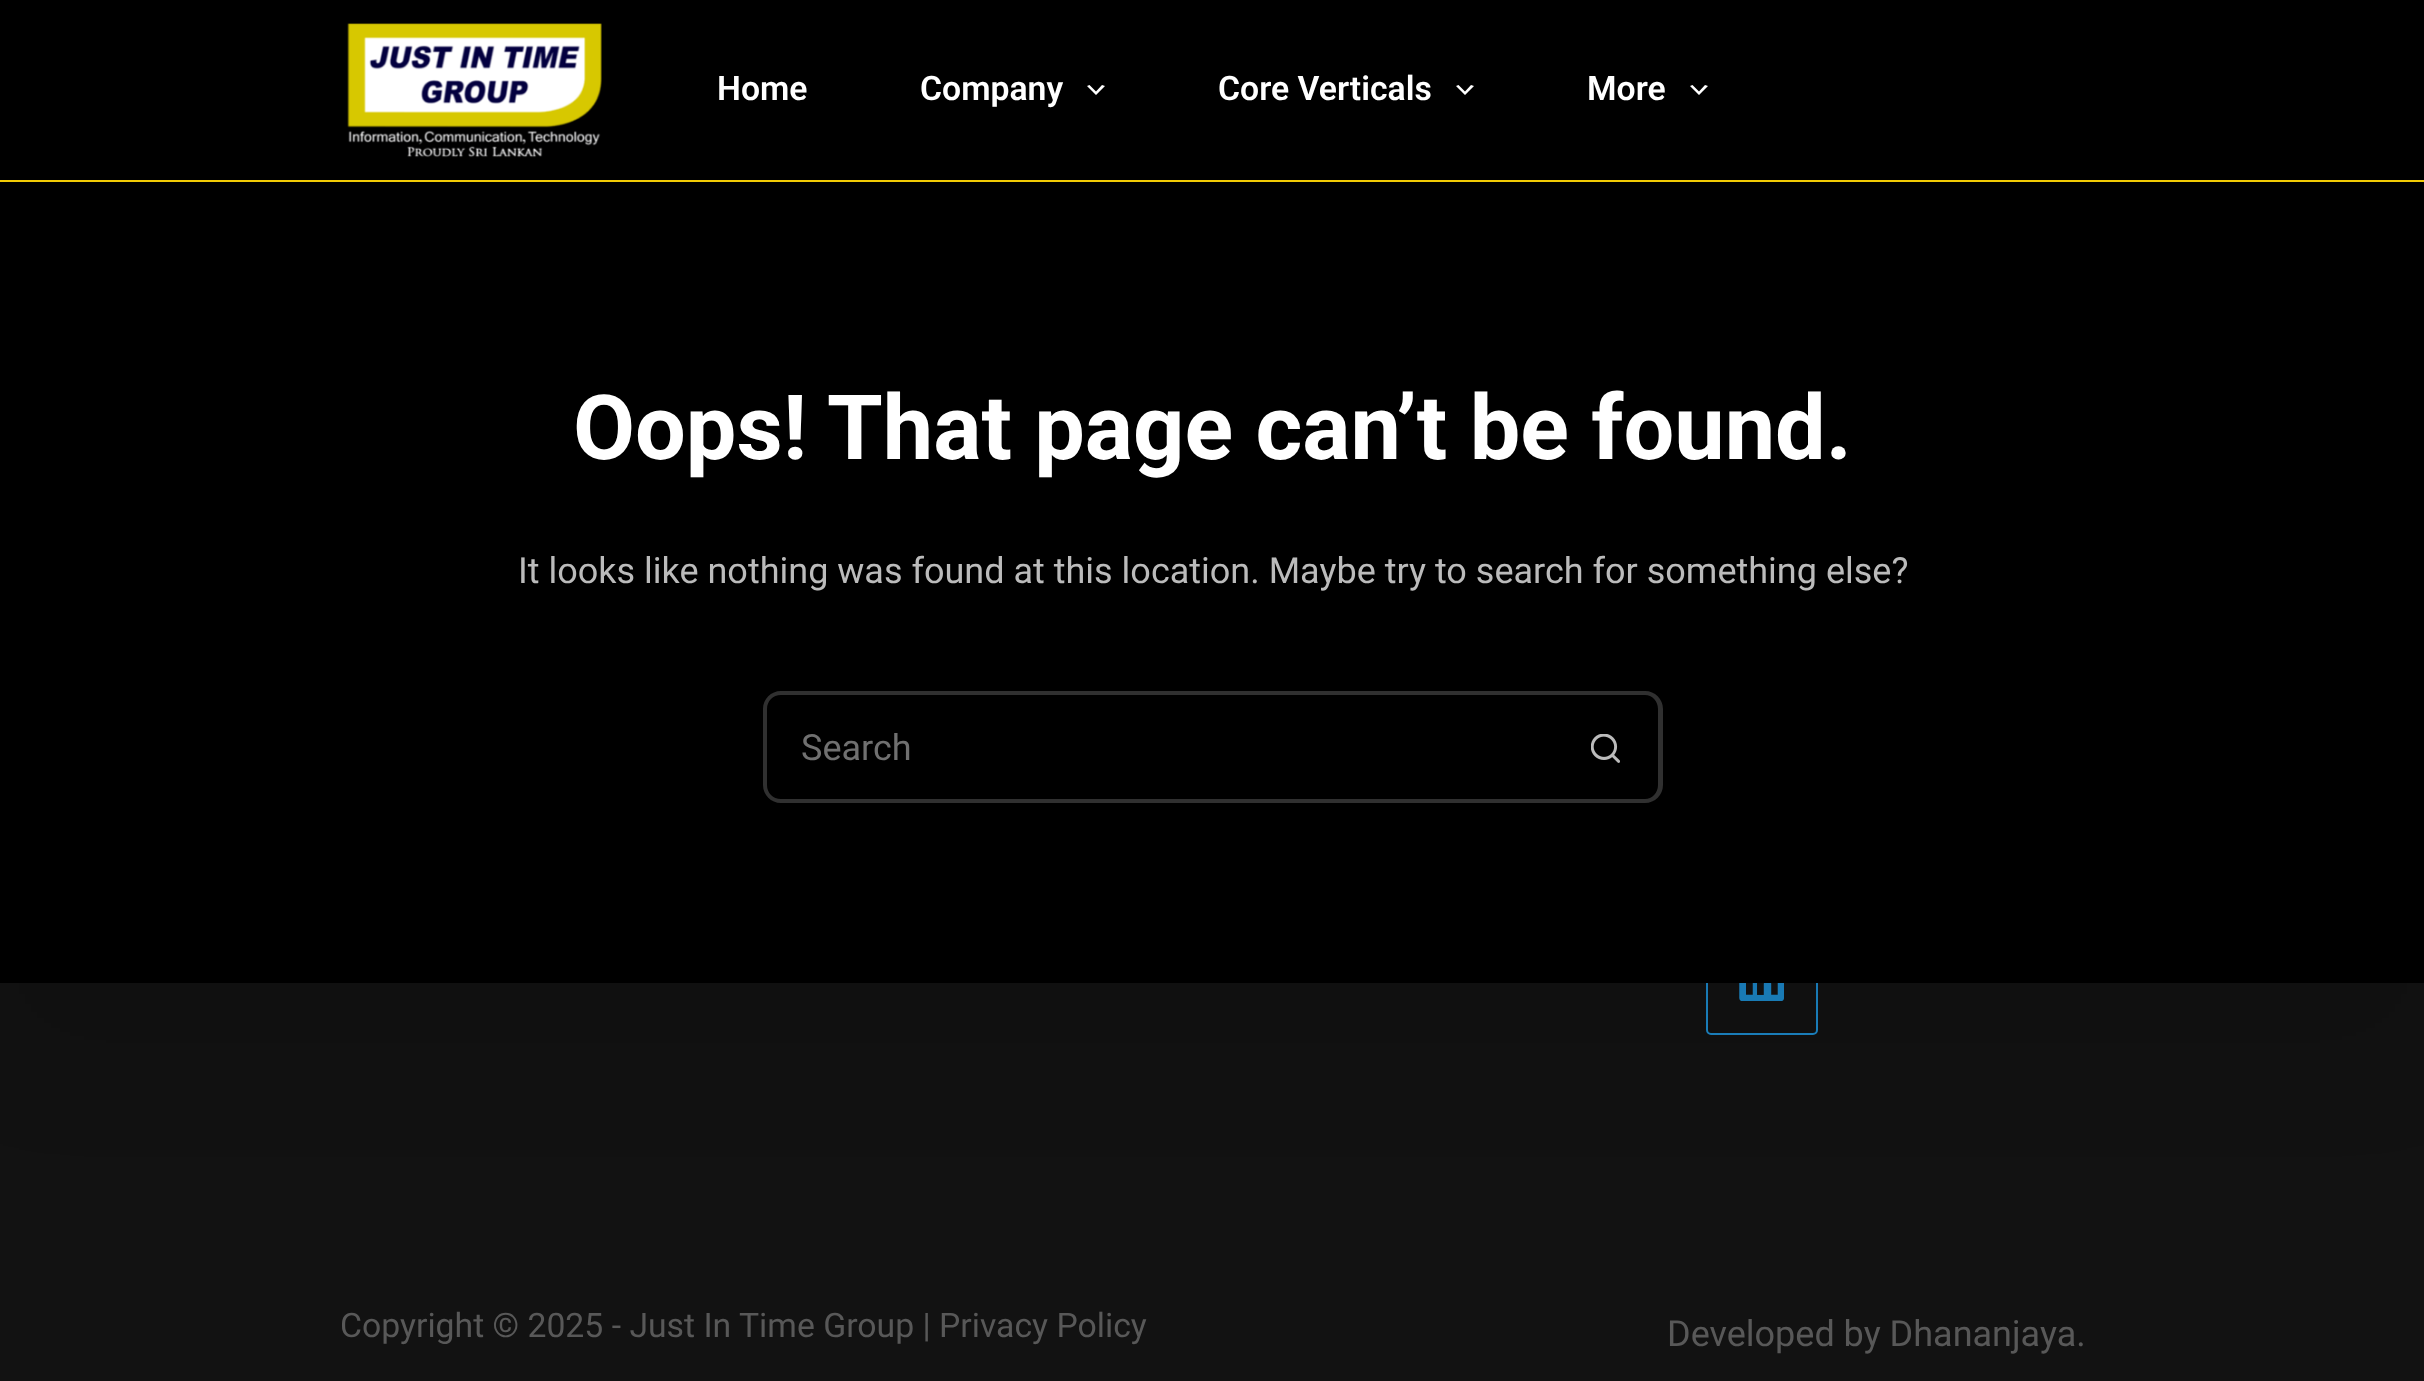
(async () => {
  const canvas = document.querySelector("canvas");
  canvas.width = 2424;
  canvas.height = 1381;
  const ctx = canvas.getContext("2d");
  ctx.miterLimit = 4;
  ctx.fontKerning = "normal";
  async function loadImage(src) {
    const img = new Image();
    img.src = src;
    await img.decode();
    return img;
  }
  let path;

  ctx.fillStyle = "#121212";
  ctx.fillRect(0, 0, 2424, 1381);
  ctx.beginPath();
  ctx.roundRect(1707, 924, 110, 110, 4);
  ctx.strokeStyle = "#1c86c6";
  ctx.lineWidth = 2;
  ctx.stroke();
  ctx.drawImage(await loadImage("img/3.png"), 1739, 983, 45, 18);
  ctx.fillStyle = "rgba(0, 0, 0, 0.1)";
  ctx.filter = "blur(56px)";
  ctx.beginPath();
  ctx.rect(0, 250, 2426, 801);
  ctx.fill();
  ctx.filter = "none";
  ctx.fillStyle = "#000000";
  ctx.fillRect(0, 0, 2424, 180);
  ctx.fillStyle = "#f2cb05";
  ctx.fillRect(0, 180, 2424, 2);
  ctx.drawImage(await loadImage("img/1.png"), 347, 23, 255, 135);
  ctx.fillStyle = "#ffffff";
  path = new Path2D("M1089.5 85L1096 91.5L1102 85L1105 86L1096 95L1087 86Z");
  ctx.fill(path);
  path = new Path2D("M1458.5 85L1465 91.5L1471 85L1474 86L1465 95L1456 86Z");
  ctx.fill(path);
  path = new Path2D("M1692.5 85L1699 91.5L1705 85L1708 86L1699 95L1690 86Z");
  ctx.fill(path);
  ctx.fillStyle = "#000000";
  ctx.fillRect(0, 182, 2424, 801);
  ctx.fillStyle = "#303030";
  path = new Path2D("M781 691H1550V803H781C771 803 763 795 763 785V709C763 699 771 691 781 691ZM781 695H1550V799H781C773 799 767 793 767 785V709C767 701 773 695 781 695Z");
  ctx.fill(path, "evenodd");
  path = new Path2D("M1550 691H1645C1655 691 1663 699 1663 709V785C1663 795 1655 803 1645 803H1550ZM1550 695H1645C1652 695 1658 701 1658 709V785C1658 793 1652 799 1645 799H1550Z");
  ctx.fill(path, "evenodd");
  ctx.drawImage(await loadImage("img/2.png"), 1591, 734, 29, 29);
  ctx.font = "600 33.75px Roboto";
  ctx.fillStyle = "#ffffff";
  for (const [text, x, y] of [
    ["Home", 717, 100],
    ["Company", 920, 100],
    ["Core Verticals", 1218, 100],
    ["More", 1587, 100],
  ]) {
    ctx.fillText(text, x, y);
  }
  ctx.font = "bold 90px Roboto";
  ctx.fillText("Oops! That page can’t be found.", 573, 459);
  ctx.font = "36px Roboto";
  ctx.fillStyle = "#bbbbbb";
  ctx.fillText("It looks like nothing was found at this location. Maybe try to search for something else?", 518, 583);
  ctx.fillStyle = "#707070";
  ctx.fillText("Search", 801, 760);
  ctx.font = "33.75px Roboto";
  ctx.fillStyle = "#585858";
  ctx.fillText("Copyright © 2025 - Just In Time Group | Privacy Policy", 340, 1337);
  ctx.font = "36px Roboto";
  ctx.fillText("Developed by Dhananjaya.", 1667, 1346);
})();
